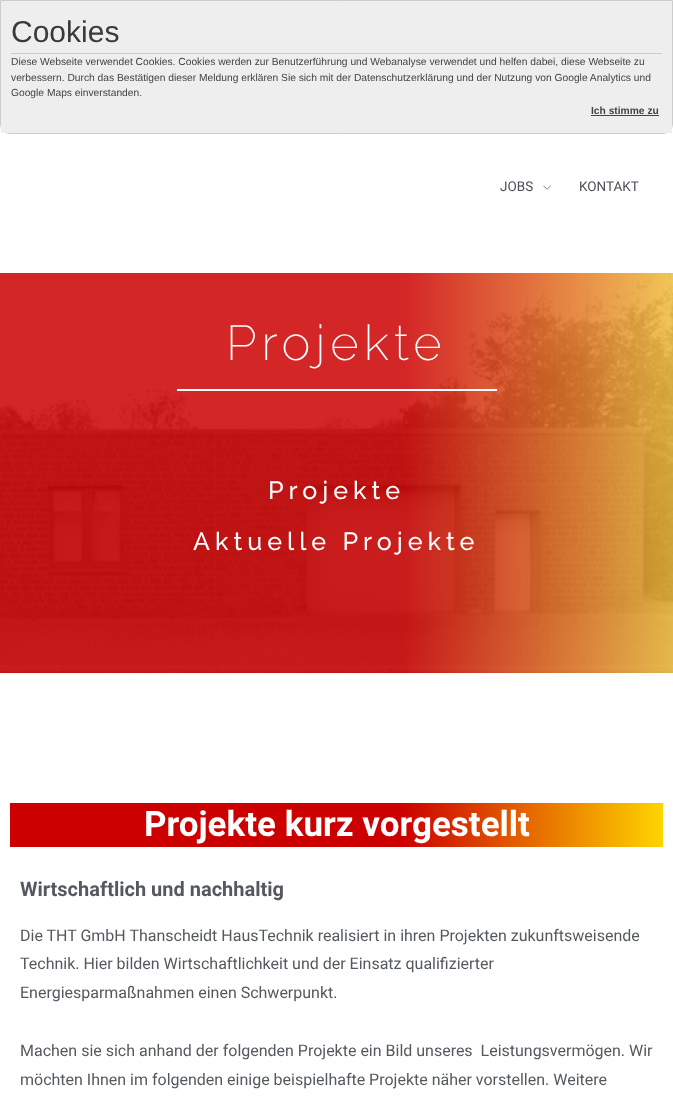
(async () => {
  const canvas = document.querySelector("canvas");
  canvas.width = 673;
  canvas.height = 1104;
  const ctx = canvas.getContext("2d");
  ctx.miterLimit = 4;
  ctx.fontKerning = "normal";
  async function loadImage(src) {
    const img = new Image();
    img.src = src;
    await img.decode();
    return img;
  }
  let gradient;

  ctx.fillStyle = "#ffffff";
  ctx.fillRect(0, 0, 673, 1104);
  ctx.beginPath();
  ctx.roundRect(0.5, 0.5, 672, 133, [0, 0, 9.5, 9.5]);
  ctx.strokeStyle = "#cccccc";
  ctx.stroke();
  for (const [x, y, w, h, color] of [
    [1, 1, 671, 132, "#eeeeee"],
    [11, 53, 651, 1, "#cccccc"],
    [591, 115, 68, 1, "#444444"],
  ]) {
    ctx.fillStyle = color;
    ctx.fillRect(x, y, w, h);
  }
  ctx.drawImage(await loadImage("img/1.png"), 543, 185, 8, 5);
  ctx.drawImage(await loadImage("img/2.png"), 0, 273, 673, 400);
  ctx.fillStyle = "#ffffff";
  ctx.fillRect(177, 389, 320, 2);
  gradient = ctx.createLinearGradient(10, 825, 663, 825);
  gradient.addColorStop(0.6, "#cc0001");
  gradient.addColorStop(1, "#ffd400");
  ctx.fillStyle = gradient;
  ctx.fillRect(10, 803, 653, 44);
  ctx.font = "30px Liberation Sans";
  ctx.fillStyle = "#3a3a3a";
  ctx.fillText("Cookies", 11, 42);
  ctx.font = "10.25px Liberation Sans";
  ctx.fillStyle = "#444444";
  for (const [text, x, y] of [
    ["Diese Webseite verwendet Cookies. Cookies werden zur Benutzerführung und Webanalyse verwendet und helfen dabei, diese Webseite zu", 11, 65],
    ["verbessern. Durch das Bestätigen dieser Meldung erklären Sie sich mit der Datenschutzerklärung und der Nutzung von Google Analytics und", 11, 81],
    ["Google Maps einverstanden.", 11, 96],
  ]) {
    ctx.fillText(text, x, y);
  }
  ctx.font = "bold 10.25px Liberation Sans";
  ctx.fillText("Ich stimme zu", 591, 114);
  ctx.font = "13.5px Roboto";
  ctx.fillStyle = "#4b4f58";
  ctx.fillText("JOBS", 500, 191);
  ctx.fillText("KONTAKT", 579, 191);
  ctx.letterSpacing = "5px";
  ctx.font = "200 49px Raleway";
  ctx.fillStyle = "#ffffff";
  ctx.fillText("Projekte", 226, 360);
  ctx.font = "500 25px Raleway";
  ctx.fillText("Projekte", 268, 499);
  ctx.fillText("Aktuelle Projekte", 193, 550);
  ctx.letterSpacing = "0px";
  ctx.font = "bold 35px Roboto";
  ctx.fillText("Projekte kurz vorgestellt", 144, 836);
  ctx.font = "bold 20px Roboto";
  ctx.fillStyle = "#54595f";
  ctx.fillText("Wirtschaftlich und nachhaltig", 20, 896);
  ctx.font = "16px Roboto";
  for (const [text, x, y] of [
    ["Die THT GmbH Thanscheidt HausTechnik realisiert in ihren Projekten zukunftsweisende", 20, 941],
    ["Technik. Hier bilden Wirtschaftlichkeit und der Einsatz qualifizierter", 20, 969],
    ["Energiesparmaßnahmen einen Schwerpunkt.", 20, 998],
    ["Machen sie sich anhand der folgenden Projekte ein Bild unseres  Leistungsvermögen. Wir", 20, 1056],
    ["möchten Ihnen im folgenden einige beispielhafte Projekte näher vorstellen. Weitere", 20, 1085],
  ]) {
    ctx.fillText(text, x, y);
  }
})();
